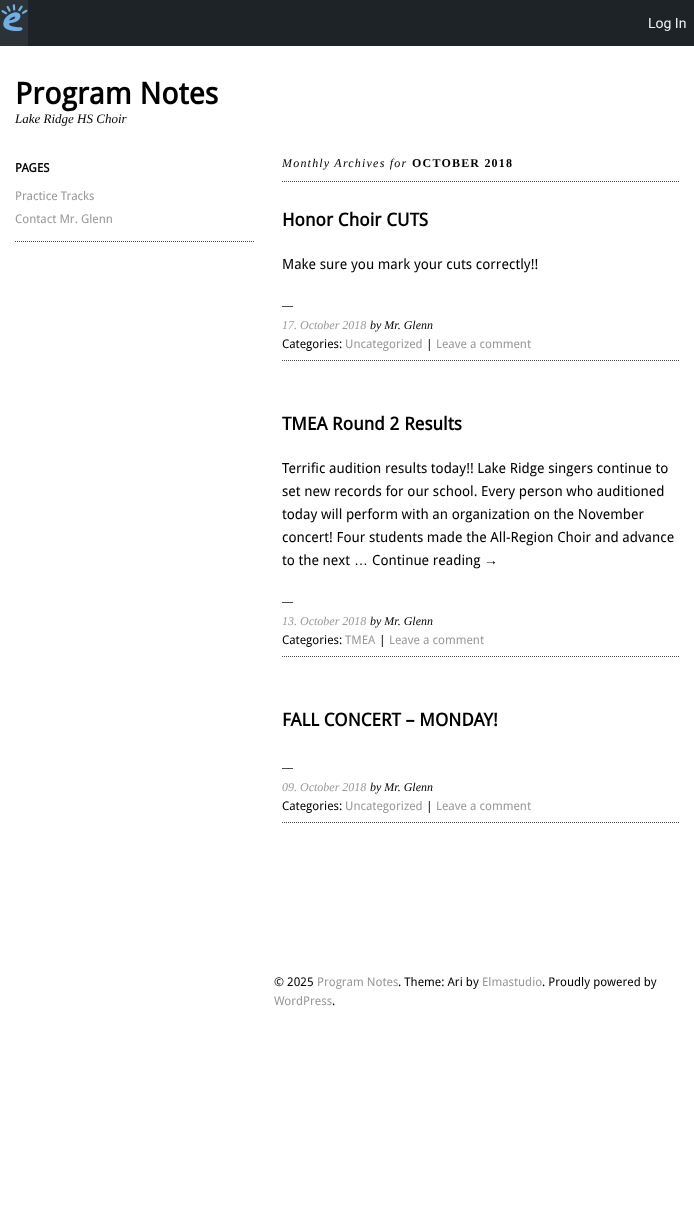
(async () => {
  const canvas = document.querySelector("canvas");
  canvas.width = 694;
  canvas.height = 1206;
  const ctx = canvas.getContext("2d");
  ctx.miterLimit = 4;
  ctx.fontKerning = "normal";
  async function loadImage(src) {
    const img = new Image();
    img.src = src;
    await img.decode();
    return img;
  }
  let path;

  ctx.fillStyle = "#ffffff";
  ctx.fillRect(0, 0, 694, 1206);
  ctx.fillStyle = "#1d2327";
  ctx.fillRect(28, 0, 666, 46);
  ctx.fillStyle = "#2c3338";
  ctx.fillRect(0, 0, 28, 46);
  ctx.drawImage(await loadImage("img/1.png"), 1, 4, 27, 28);
  path = new Path2D("M15 241.5H255");
  ctx.strokeStyle = "#4c4c4c";
  ctx.setLineDash([1, 1]);
  ctx.stroke(path);
  ctx.save();
  ctx.beginPath();
  ctx.rect(222, 156, 457, 817);
  ctx.clip();
  path = new Path2D("M282 181.5H686");
  ctx.stroke(path);
  path = new Path2D("M282 360.5H686");
  ctx.stroke(path);
  ctx.restore();
  ctx.fillStyle = "#4c4c4c";
  ctx.fillRect(282, 306, 11, 1);
  ctx.save();
  ctx.beginPath();
  ctx.rect(222, 156, 457, 817);
  ctx.clip();
  path = new Path2D("M282 656.5H686");
  ctx.stroke(path);
  ctx.restore();
  ctx.fillRect(282, 602, 11, 1);
  ctx.save();
  ctx.beginPath();
  ctx.rect(222, 156, 457, 817);
  ctx.clip();
  path = new Path2D("M282 822.5H686");
  ctx.stroke(path);
  ctx.restore();
  ctx.fillRect(282, 768, 11, 1);
  ctx.font = "14px Roboto";
  ctx.fillStyle = "#f0f0f1";
  ctx.fillText("Log In", 648, 28);
  ctx.font = "bold 30px Droid Sans";
  ctx.fillStyle = "#000000";
  ctx.fillText("Program Notes", 15, 104);
  ctx.font = "italic 13px Liberation Serif";
  ctx.fillText("Lake Ridge HS Choir", 15, 123);
  ctx.font = "bold 12px Droid Sans";
  ctx.fillText("PAGES", 15, 172);
  ctx.font = "12px Droid Sans";
  ctx.fillStyle = "#999999";
  ctx.fillText("Practice Tracks", 15, 200);
  ctx.fillText("Contact Mr. Glenn", 15, 223);
  ctx.letterSpacing = "1.2px";
  ctx.font = "italic 12px Liberation Serif";
  ctx.fillStyle = "#000000";
  ctx.fillText("Monthly Archives for", 282, 167);
  ctx.font = "bold 12px Liberation Serif";
  ctx.fillText("OCTOBER 2018", 412, 167);
  ctx.letterSpacing = "0px";
  ctx.font = "bold 18px Droid Sans";
  ctx.fillText("Honor Choir CUTS", 282, 226);
  ctx.font = "14px Droid Sans";
  ctx.fillText("Make sure you mark your cuts correctly!!", 282, 269);
  ctx.font = "italic 12px Liberation Serif";
  ctx.fillStyle = "#999999";
  ctx.fillText("17. October 2018", 282, 329);
  ctx.fillStyle = "#000000";
  ctx.fillText("by Mr. Glenn", 370, 329);
  ctx.font = "12px Droid Sans";
  ctx.fillText("Categories:", 282, 348);
  ctx.fillStyle = "#999999";
  ctx.fillText("Uncategorized", 345, 348);
  ctx.fillStyle = "#000000";
  ctx.fillText("|", 426, 348);
  ctx.fillStyle = "#999999";
  ctx.fillText("Leave a comment", 436, 348);
  ctx.font = "bold 18px Droid Sans";
  ctx.fillStyle = "#000000";
  ctx.fillText("TMEA Round 2 Results", 282, 430);
  ctx.font = "14px Droid Sans";
  for (const [text, x, y] of [
    ["Terrific audition results today!! Lake Ridge singers continue to", 282, 473],
    ["set new records for our school. Every person who auditioned", 282, 496],
    ["today will perform with an organization on the November", 282, 519],
    ["concert! Four students made the All-Region Choir and advance", 282, 542],
    ["to the next", 282, 565],
  ]) {
    ctx.fillText(text, x, y);
  }
  ctx.font = "14px Liberation Sans";
  ctx.fillText("…", 354, 565);
  ctx.font = "14px Droid Sans";
  ctx.fillText("Continue reading", 372, 565);
  ctx.font = "14px Liberation Sans";
  ctx.fillText("→", 484, 565);
  ctx.font = "italic 12px Liberation Serif";
  ctx.fillStyle = "#999999";
  ctx.fillText("13. October 2018", 282, 625);
  ctx.fillStyle = "#000000";
  ctx.fillText("by Mr. Glenn", 370, 625);
  ctx.font = "12px Droid Sans";
  ctx.fillText("Categories:", 282, 644);
  ctx.fillStyle = "#999999";
  ctx.fillText("TMEA", 345, 644);
  ctx.fillStyle = "#000000";
  ctx.fillText("|", 379, 644);
  ctx.fillStyle = "#999999";
  ctx.fillText("Leave a comment", 389, 644);
  ctx.font = "bold 18px Droid Sans";
  ctx.fillStyle = "#000000";
  ctx.fillText("FALL CONCERT – MONDAY!", 282, 726);
  ctx.font = "italic 12px Liberation Serif";
  ctx.fillStyle = "#999999";
  ctx.fillText("09. October 2018", 282, 791);
  ctx.fillStyle = "#000000";
  ctx.fillText("by Mr. Glenn", 370, 791);
  ctx.font = "12px Droid Sans";
  ctx.fillText("Categories:", 282, 810);
  ctx.fillStyle = "#999999";
  ctx.fillText("Uncategorized", 345, 810);
  ctx.fillStyle = "#000000";
  ctx.fillText("|", 426, 810);
  ctx.fillStyle = "#999999";
  ctx.fillText("Leave a comment", 436, 810);
  ctx.fillStyle = "#000000";
  ctx.fillText("© 2025", 274, 986);
  ctx.fillStyle = "#999999";
  ctx.fillText("Program Notes", 317, 986);
  ctx.fillStyle = "#000000";
  ctx.fillText(". Theme: Ari by", 398, 986);
  ctx.fillStyle = "#999999";
  ctx.fillText("Elmastudio", 482, 986);
  ctx.fillStyle = "#000000";
  ctx.fillText(". Proudly powered by", 542, 986);
  ctx.fillStyle = "#999999";
  ctx.fillText("WordPress", 274, 1005);
  ctx.fillStyle = "#000000";
  ctx.fillText(".", 332, 1005);
})();
